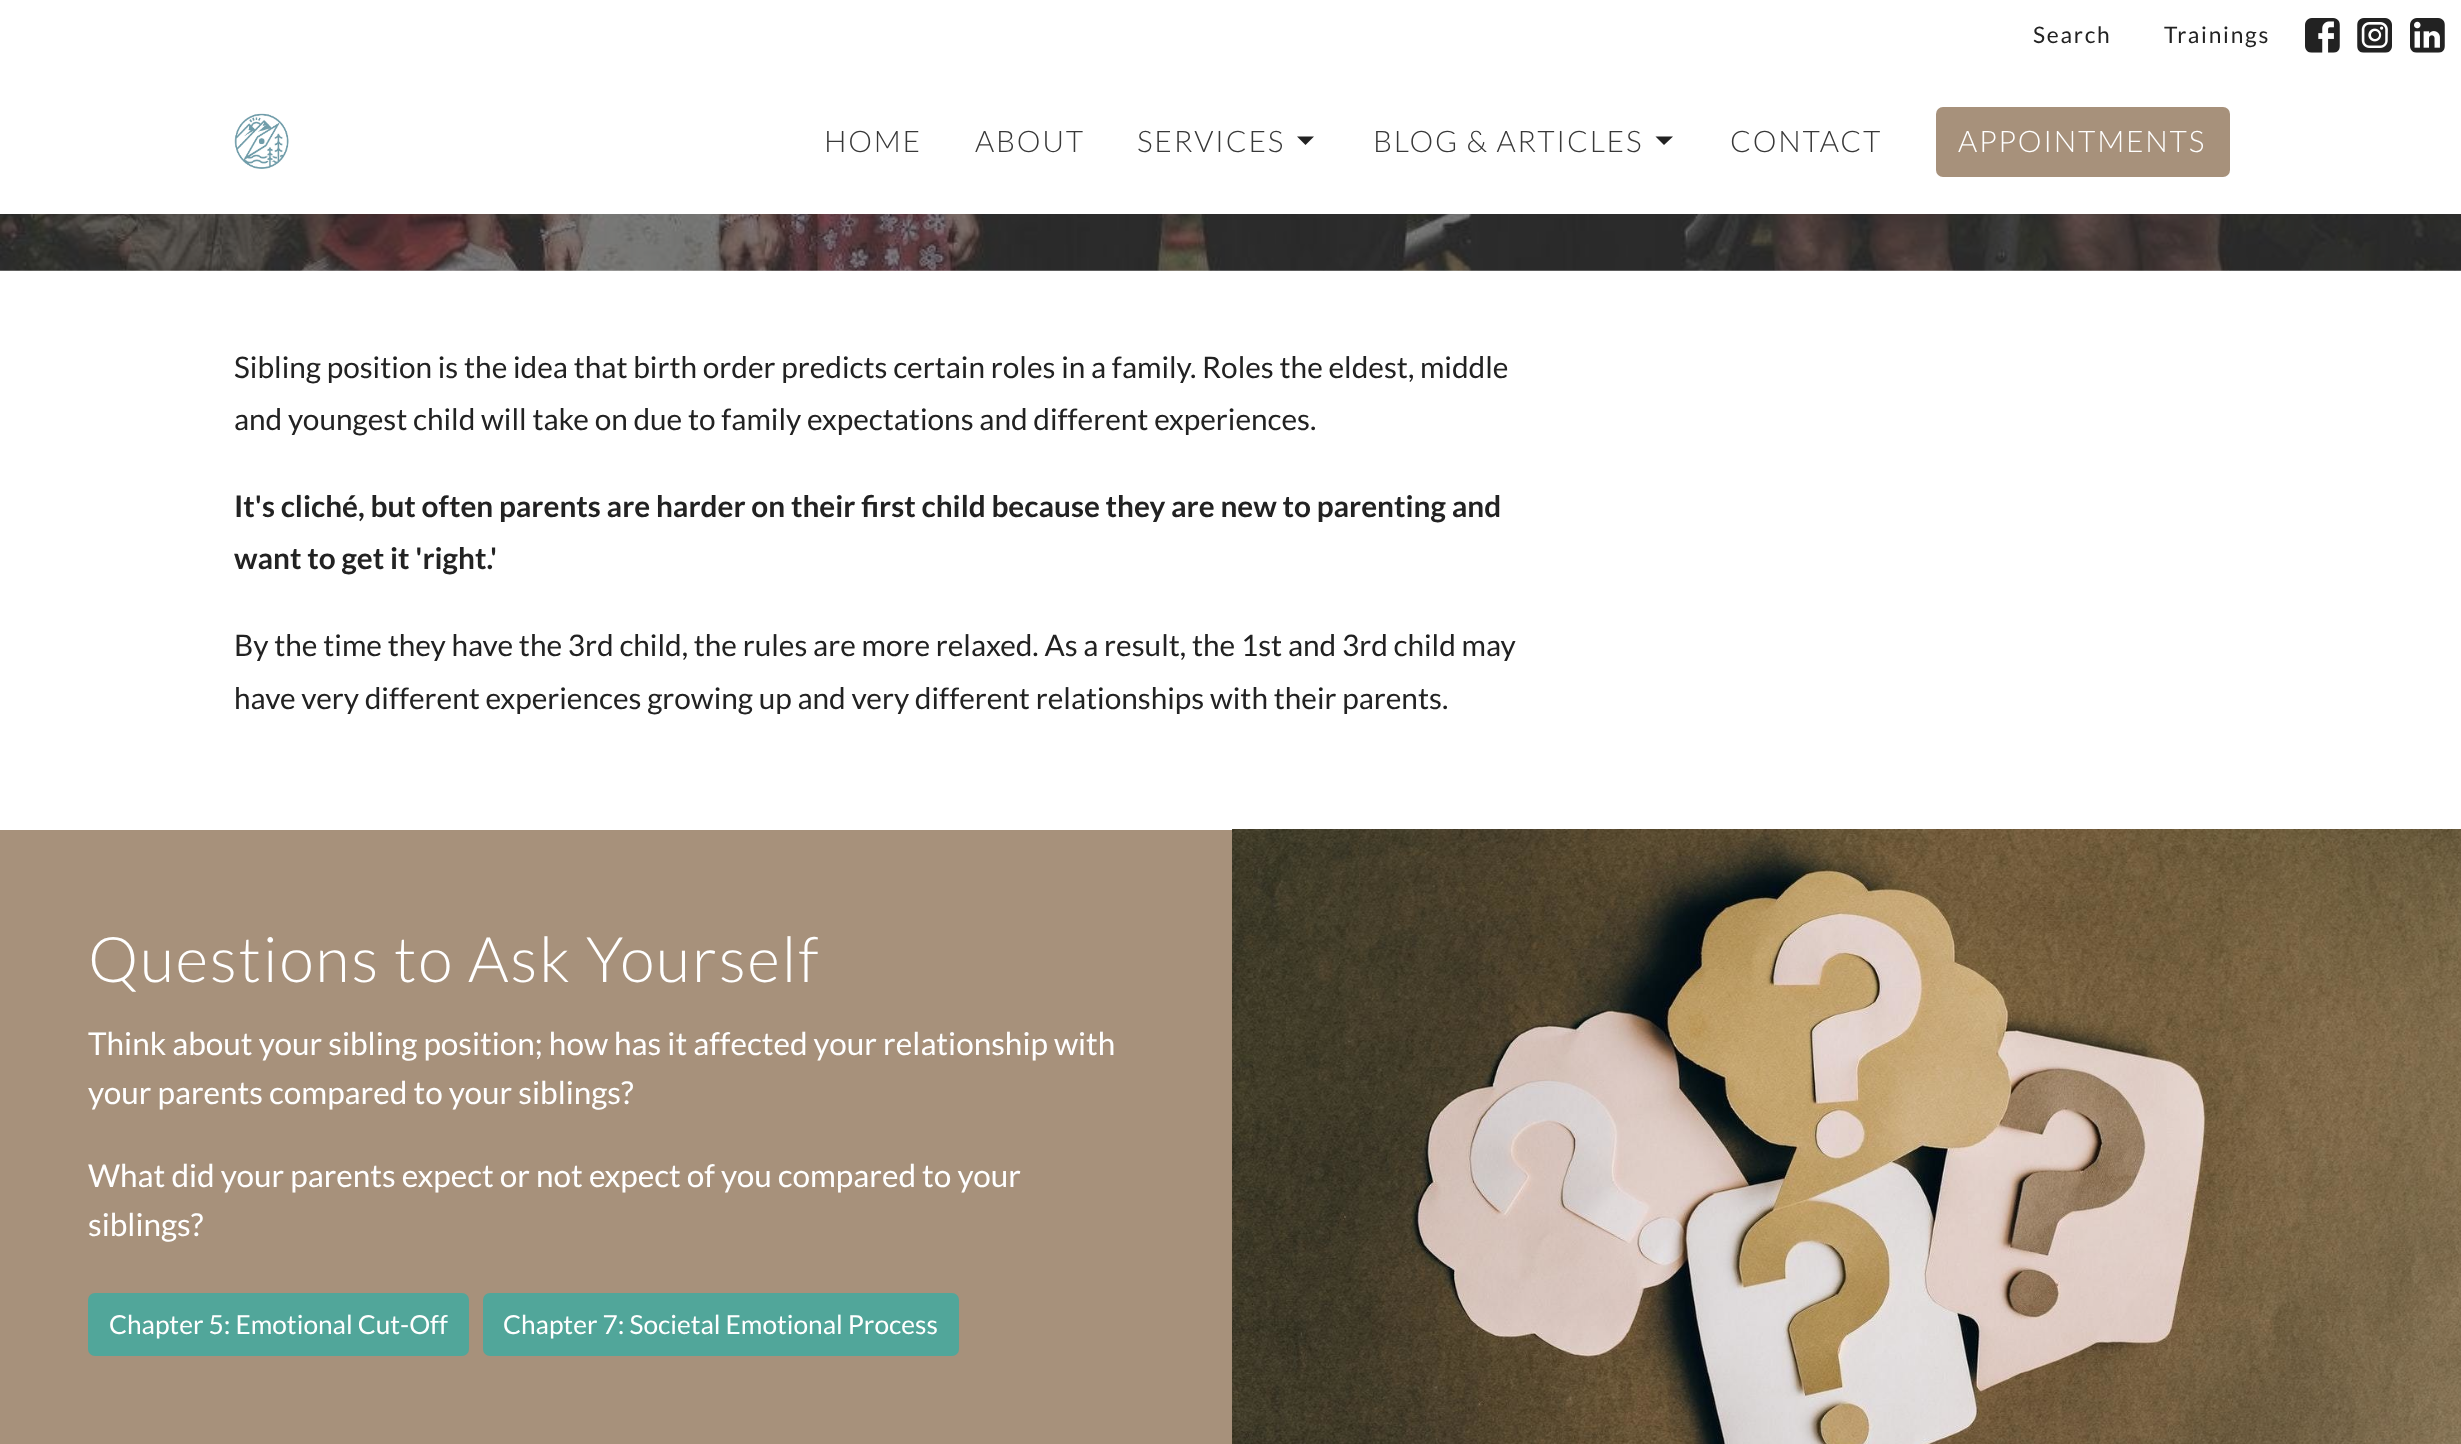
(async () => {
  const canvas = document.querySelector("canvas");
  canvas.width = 2461;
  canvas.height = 1444;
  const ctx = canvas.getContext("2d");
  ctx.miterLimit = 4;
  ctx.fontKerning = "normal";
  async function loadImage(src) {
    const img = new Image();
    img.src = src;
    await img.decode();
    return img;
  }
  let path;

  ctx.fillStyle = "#ffffff";
  ctx.fillRect(0, 0, 2461, 1444);
  ctx.drawImage(await loadImage("img/1.png"), 2305, 18, 35, 35);
  ctx.drawImage(await loadImage("img/2.png"), 2357, 18, 35, 35);
  ctx.drawImage(await loadImage("img/3.png"), 2410, 18, 35, 35);
  ctx.drawImage(await loadImage("img/4.png"), 234, 113, 55, 56);
  ctx.fillStyle = "#222222";
  path = new Path2D("M1297 136.5L1305.5 145L1314 136.5Z");
  ctx.fill(path);
  path = new Path2D("M1655.5 136.5L1664 145L1673 136.5Z");
  ctx.fill(path);
  ctx.fillStyle = "#a7917b";
  ctx.beginPath();
  ctx.roundRect(1936, 107, 294, 70, 7);
  ctx.fill();
  ctx.drawImage(await loadImage("img/5.png"), 0, 214, 2461, 57);
  ctx.fillRect(0, 830, 1232, 614);
  ctx.fillStyle = "#51a69a";
  ctx.beginPath();
  ctx.roundRect(88, 1293, 381, 63, 7);
  ctx.fill();
  ctx.beginPath();
  ctx.roundRect(483, 1293, 476, 63, 7);
  ctx.fill();
  ctx.drawImage(await loadImage("img/6.png"), 1232, 829, 1229, 615);
  ctx.letterSpacing = "1.75px";
  ctx.font = "22.75px Lato";
  ctx.fillStyle = "#222222";
  ctx.fillText("Search", 2033, 43);
  ctx.fillText("Trainings", 2164, 43);
  ctx.font = "300 29.75px Lato";
  ctx.fillStyle = "#383838";
  for (const [text, x, y] of [
    ["HOME", 824, 152],
    ["ABOUT", 975, 152],
    ["SERVICES", 1137, 152],
    ["BLOG & ARTICLES", 1373, 152],
    ["CONTACT", 1730, 152],
  ]) {
    ctx.fillText(text, x, y);
  }
  ctx.fillStyle = "#ffffff";
  ctx.fillText("APPOINTMENTS", 1958, 152);
  ctx.letterSpacing = "0px";
  ctx.font = "29.75px Lato";
  ctx.fillStyle = "#222222";
  ctx.fillText("Sibling position is the idea that birth order predicts certain roles in a family. Roles the eldest, middle", 234, 378);
  ctx.fillText("and youngest child will take on due to family expectations and different experiences.", 234, 430);
  ctx.font = "bold 29.75px Lato";
  ctx.fillText("It's cliché, but often parents are harder on their first child because they are new to parenting and", 234, 517);
  ctx.fillText("want to get it 'right.'", 234, 569);
  ctx.font = "29.75px Lato";
  ctx.fillText("By the time they have the 3rd child, the rules are more relaxed. As a result, the 1st and 3rd child may", 234, 656);
  ctx.fillText("have very different experiences growing up and very different relationships with their parents.", 234, 709);
  ctx.letterSpacing = "1.75px";
  ctx.font = "300 63px Lato";
  ctx.fillStyle = "#ffffff";
  ctx.fillText("Questions to Ask Yourself", 88, 982);
  ctx.letterSpacing = "0px";
  ctx.font = "31.5px Lato";
  for (const [text, x, y] of [
    ["Think about your sibling position; how has it affected your relationship with", 88, 1055],
    ["your parents compared to your siblings?", 88, 1104],
    ["What did your parents expect or not expect of you compared to your", 88, 1187],
    ["siblings?", 88, 1236],
  ]) {
    ctx.fillText(text, x, y);
  }
  ctx.font = "26.25px Lato";
  ctx.fillText("Chapter 5: Emotional Cut-Off", 109, 1334);
  ctx.fillText("Chapter 7: Societal Emotional Process", 503, 1334);
})();
